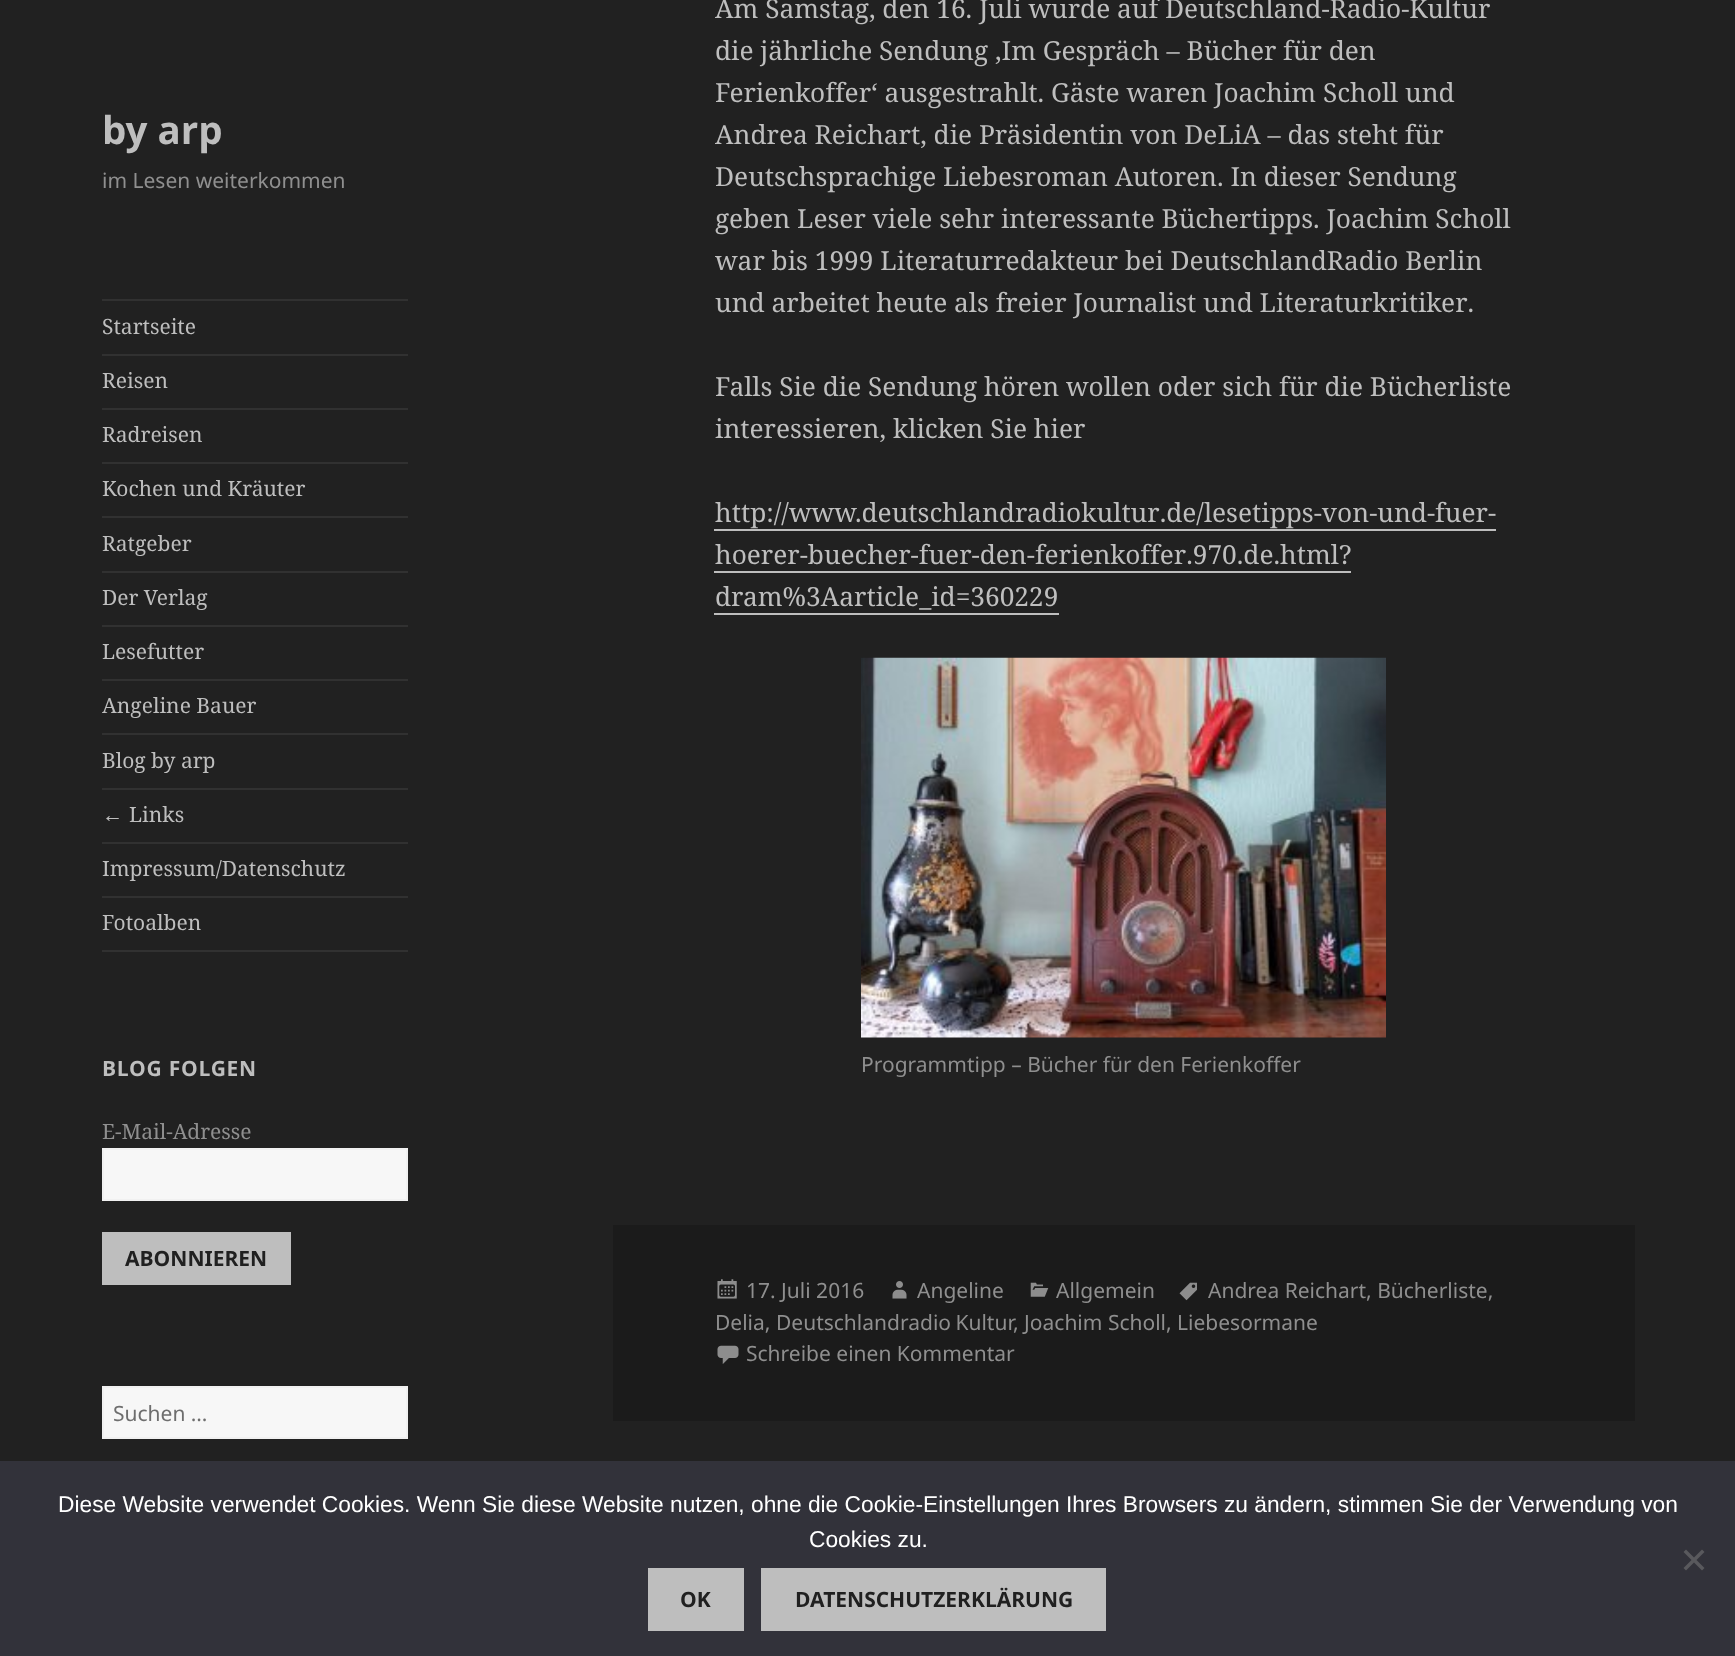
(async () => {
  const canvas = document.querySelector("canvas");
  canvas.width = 1735;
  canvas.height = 1656;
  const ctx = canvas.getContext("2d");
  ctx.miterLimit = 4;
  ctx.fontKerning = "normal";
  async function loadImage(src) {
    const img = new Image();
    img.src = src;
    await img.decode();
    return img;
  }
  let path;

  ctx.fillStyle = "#212121";
  ctx.fillRect(0, 0, 1735, 1656);
  for (const [x, y, w, h, color] of [
    [102, 299, 306, 2, "#313131"],
    [102, 950, 306, 2, "#313131"],
    [102, 354, 306, 2, "#313131"],
    [102, 408, 306, 2, "#313131"],
    [102, 462, 306, 2, "#313131"],
    [102, 516, 306, 2, "#313131"],
    [102, 571, 306, 2, "#313131"],
    [102, 625, 306, 2, "#313131"],
    [102, 679, 306, 2, "#313131"],
    [102, 733, 306, 2, "#313131"],
    [102, 788, 306, 2, "#313131"],
    [102, 842, 306, 2, "#313131"],
    [102, 896, 306, 2, "#313131"],
  ]) {
    ctx.fillStyle = color;
    ctx.fillRect(x, y, w, h);
  }
  ctx.fillStyle = "#f7f7f7";
  ctx.beginPath();
  ctx.rect(103, 1149, 304, 51);
  ctx.fill();
  ctx.strokeStyle = "#f1f1f1";
  ctx.lineWidth = 2;
  ctx.stroke();
  ctx.fillStyle = "#bebebe";
  ctx.fillRect(102, 1232, 189, 53);
  ctx.fillStyle = "#f7f7f7";
  ctx.beginPath();
  ctx.rect(103, 1387, 304, 51);
  ctx.fill();
  ctx.stroke();
  for (const [x, y, w, h, color] of [
    [714, 529, 782, 2, "#bebebe"],
    [714, 571, 637, 2, "#bebebe"],
    [714, 613, 345, 2, "#bebebe"],
  ]) {
    ctx.fillStyle = color;
    ctx.fillRect(x, y, w, h);
  }
  ctx.drawImage(await loadImage("img/1.png"), 861, 657, 525, 381);
  ctx.fillStyle = "#1b1b1b";
  ctx.fillRect(613, 1225, 1022, 196);
  ctx.drawImage(await loadImage("img/2.png"), 1179, 1282, 18, 19);
  ctx.drawImage(await loadImage("img/3.png"), 717, 1279, 20, 20);
  ctx.drawImage(await loadImage("img/4.png"), 892, 1281, 15, 18);
  ctx.drawImage(await loadImage("img/5.png"), 1030, 1282, 19, 15);
  ctx.drawImage(await loadImage("img/6.png"), 717, 1345, 22, 19);
  ctx.fillStyle = "#32323a";
  ctx.fillRect(0, 1461, 1735, 195);
  ctx.fillStyle = "#59595d";
  path = new Path2D("M1702 1549.5L1704.5 1552L1686 1570.5L1683.5 1568Z");
  ctx.fill(path);
  path = new Path2D("M1683.5 1552L1686 1549.5L1704.5 1568L1702 1570.5Z");
  ctx.fill(path);
  ctx.fillStyle = "#bebebe";
  ctx.fillRect(648, 1568, 96, 63);
  ctx.fillRect(761, 1568, 345, 63);
  ctx.font = "bold 38.5px Noto Sans";
  ctx.fillText("by arp", 102, 144);
  ctx.font = "21px Noto Sans";
  ctx.fillStyle = "#8f8f8f";
  ctx.fillText("im Lesen weiterkommen", 102, 188);
  ctx.font = "21px Noto Serif";
  ctx.fillStyle = "#bebebe";
  for (const [text, x, y] of [
    ["Startseite", 102, 334],
    ["Reisen", 102, 388],
    ["Radreisen", 102, 442],
    ["Kochen und Kräuter", 102, 496],
    ["Ratgeber", 102, 551],
    ["Der Verlag", 102, 605],
    ["Lesefutter", 102, 659],
    ["Angeline Bauer", 102, 713],
    ["Blog by arp", 102, 768],
  ]) {
    ctx.fillText(text, x, y);
  }
  ctx.font = "21px Liberation Serif";
  ctx.fillText("←", 102, 822);
  ctx.font = "21px Noto Serif";
  for (const [text, x, y] of [
    ["Links", 129, 822],
    ["Impressum/Datenschutz", 102, 876],
    ["Fotoalben", 102, 930],
  ]) {
    ctx.fillText(text, x, y);
  }
  ctx.letterSpacing = "0.75px";
  ctx.font = "bold 21px Noto Sans";
  ctx.fillText("BLOG FOLGEN", 102, 1076);
  ctx.letterSpacing = "0px";
  ctx.font = "21px Noto Serif";
  ctx.fillStyle = "#8f8f8f";
  ctx.fillText("E-Mail-Adresse", 102, 1139);
  ctx.font = "bold 21px Noto Sans";
  ctx.fillStyle = "#202020";
  ctx.fillText("ABONNIEREN", 125, 1266);
  ctx.font = "21px Noto Sans";
  ctx.fillStyle = "#6e6e6e";
  ctx.fillText("Suchen …", 113, 1421);
  ctx.font = "26.25px Noto Serif";
  ctx.fillStyle = "#bebebe";
  for (const [text, x, y] of [
    ["Am Samstag, den 16. Juli wurde auf Deutschland-Radio-Kultur", 715, 18],
    ["die jährliche Sendung ‚Im Gespräch – Bücher für den", 715, 60],
    ["Ferienkoffer‘ ausgestrahlt. Gäste waren Joachim Scholl und", 715, 102],
    ["Andrea Reichart, die Präsidentin von DeLiA – das steht für", 715, 144],
    ["Deutschsprachige Liebesroman Autoren. In dieser Sendung", 715, 186],
    ["geben Leser viele sehr interessante Büchertipps. Joachim Scholl", 715, 228],
    ["war bis 1999 Literaturredakteur bei DeutschlandRadio Berlin", 715, 270],
    ["und arbeitet heute als freier Journalist und Literaturkritiker.", 715, 312],
    ["Falls Sie die Sendung hören wollen oder sich für die Bücherliste", 715, 396],
    ["interessieren, klicken Sie hier", 715, 438],
    ["http://www.deutschlandradiokultur.de/lesetipps-von-und-fuer-", 715, 522],
    ["hoerer-buecher-fuer-den-ferienkoffer.970.de.html?", 715, 564],
    ["dram%3Aarticle_id=360229", 715, 606],
  ]) {
    ctx.fillText(text, x, y);
  }
  ctx.font = "21px Noto Sans";
  ctx.fillStyle = "#8f8f8f";
  for (const [text, x, y] of [
    ["Programmtipp – Bücher für den Ferienkoffer", 861, 1072],
    ["Andrea Reichart, Bücherliste,", 1208, 1298],
    ["Delia,", 715, 1330],
  ]) {
    ctx.fillText(text, x, y);
  }
  ctx.wordSpacing = "-1px";
  ctx.fillText("Deutschlandradio Kultur", 776, 1330);
  ctx.wordSpacing = "0px";
  for (const [text, x, y] of [
    [", Joachim Scholl, Liebesormane", 1013, 1330],
    ["17. Juli 2016", 746, 1298],
    ["Angeline", 917, 1298],
    ["Allgemein", 1056, 1298],
    ["Schreibe einen Kommentar", 746, 1361],
  ]) {
    ctx.fillText(text, x, y);
  }
  ctx.font = "22.75px Liberation Sans";
  ctx.fillStyle = "#ffffff";
  ctx.fillText("Diese Website verwendet Cookies. Wenn Sie diese Website nutzen, ohne die Cookie-Einstellungen Ihres Browsers zu ändern, stimmen Sie der Verwendung von", 58, 1512);
  ctx.fillText("Cookies zu.", 809, 1547);
  ctx.font = "bold 21px Noto Sans";
  ctx.fillStyle = "#202020";
  ctx.fillText("OK", 680, 1607);
  ctx.fillText("DATENSCHUTZERKLÄRUNG", 795, 1607);
})();
